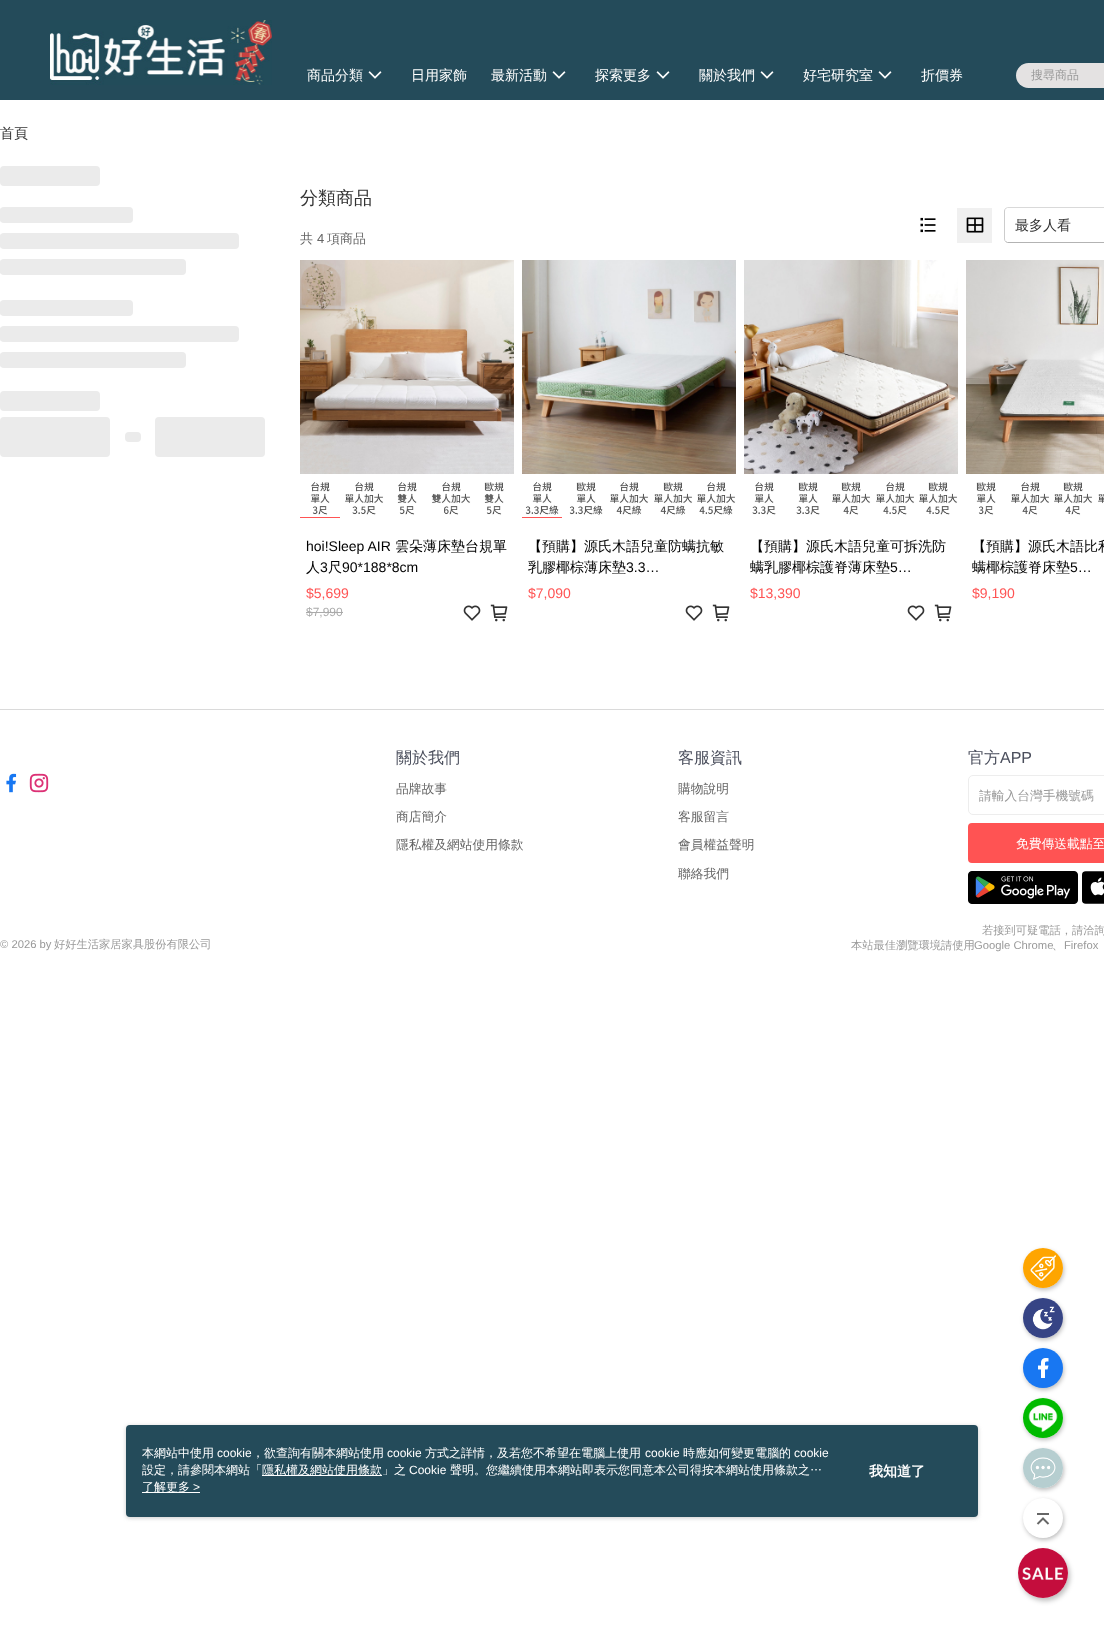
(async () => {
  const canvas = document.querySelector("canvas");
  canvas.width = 1104;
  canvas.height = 1634;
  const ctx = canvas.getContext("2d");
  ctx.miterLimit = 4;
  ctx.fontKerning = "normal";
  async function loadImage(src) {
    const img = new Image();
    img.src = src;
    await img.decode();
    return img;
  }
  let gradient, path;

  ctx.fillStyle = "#ffffff";
  ctx.fillRect(0, 0, 1104, 1634);
  ctx.fillStyle = "#244b5a";
  ctx.fillRect(0, 0, 1104, 100);
  ctx.drawImage(await loadImage("img/1.png"), 50, 20, 222, 65);
  ctx.drawImage(await loadImage("img/2.png"), 368, 71, 14, 8);
  ctx.drawImage(await loadImage("img/2.png"), 552, 71, 14, 8);
  ctx.drawImage(await loadImage("img/2.png"), 656, 71, 14, 8);
  ctx.drawImage(await loadImage("img/2.png"), 760, 71, 14, 8);
  ctx.drawImage(await loadImage("img/2.png"), 878, 71, 14, 8);
  ctx.fillStyle = "#e4e2e2";
  ctx.beginPath();
  ctx.roundRect(1016, 63, 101, 25, 12.5);
  ctx.fill();
  ctx.fillStyle = "rgba(0, 0, 0, 0.25)";
  ctx.filter = "blur(2px)";
  ctx.beginPath();
  ctx.roundRect(1024, 1250, 40, 40, 20);
  ctx.fill();
  ctx.filter = "none";
  ctx.fillStyle = "#ffffff";
  ctx.beginPath();
  ctx.arc(1043, 1268, 20, 0, Math.PI * 2);
  ctx.fill();
  ctx.drawImage(await loadImage("img/3.png"), 1023, 1248, 40, 40);
  ctx.fillStyle = "rgba(0, 0, 0, 0.25)";
  ctx.filter = "blur(2px)";
  ctx.beginPath();
  ctx.roundRect(1024, 1300, 40, 40, 20);
  ctx.fill();
  ctx.filter = "none";
  ctx.fillStyle = "#ffffff";
  ctx.beginPath();
  ctx.arc(1043, 1318, 20, 0, Math.PI * 2);
  ctx.fill();
  ctx.drawImage(await loadImage("img/4.png"), 1023, 1298, 40, 40);
  ctx.fillStyle = "rgba(0, 0, 0, 0.25)";
  ctx.filter = "blur(2px)";
  ctx.beginPath();
  ctx.roundRect(1024, 1350, 40, 40, 20);
  ctx.fill();
  ctx.filter = "none";
  ctx.fillStyle = "#1877f2";
  ctx.beginPath();
  ctx.arc(1043, 1368, 20, 0, Math.PI * 2);
  ctx.fill();
  ctx.drawImage(await loadImage("img/5.png"), 1038, 1358, 11, 20);
  ctx.fillStyle = "rgba(0, 0, 0, 0.25)";
  ctx.filter = "blur(2px)";
  ctx.beginPath();
  ctx.roundRect(1024, 1400, 40, 40, 20);
  ctx.fill();
  ctx.filter = "none";
  ctx.fillStyle = "#ffffff";
  ctx.beginPath();
  ctx.arc(1043, 1418, 20, 0, Math.PI * 2);
  ctx.fill();
  ctx.drawImage(await loadImage("img/6.png"), 1023, 1398, 40, 40);
  ctx.fillStyle = "rgba(0, 0, 0, 0.25)";
  ctx.filter = "blur(2px)";
  ctx.beginPath();
  ctx.roundRect(1024, 1450, 40, 40, 20);
  ctx.fill();
  ctx.filter = "none";
  ctx.fillStyle = "#ffffff";
  ctx.beginPath();
  ctx.arc(1043, 1468, 20, 0, Math.PI * 2);
  ctx.fill();
  ctx.drawImage(await loadImage("img/7.png"), 1023, 1448, 40, 40);
  ctx.fillStyle = "rgba(0, 0, 0, 0.25)";
  ctx.filter = "blur(2px)";
  ctx.beginPath();
  ctx.roundRect(1024, 1500, 40, 40, 20);
  ctx.fill();
  ctx.filter = "none";
  ctx.fillStyle = "#ffffff";
  ctx.beginPath();
  ctx.arc(1043, 1518, 20, 0, Math.PI * 2);
  ctx.fill();
  ctx.drawImage(await loadImage("img/8.png"), 1036, 1513, 14, 12);
  ctx.fillStyle = "rgba(0, 0, 0, 0.25)";
  ctx.filter = "blur(2.5px)";
  ctx.beginPath();
  ctx.roundRect(1020, 1551, 50, 50, 25);
  ctx.fill();
  ctx.filter = "none";
  ctx.fillStyle = "#ffffff";
  ctx.beginPath();
  ctx.arc(1043, 1573, 25, 0, Math.PI * 2);
  ctx.fill();
  ctx.drawImage(await loadImage("img/9.png"), 1018, 1548, 50, 50);
  ctx.fillStyle = "#ebebeb";
  ctx.beginPath();
  ctx.roundRect(0, 166, 100, 20, 4);
  ctx.fill();
  ctx.beginPath();
  ctx.roundRect(0, 207, 133, 16, 4);
  ctx.fill();
  ctx.save();
  ctx.beginPath();
  ctx.roundRect(0, 207, 133, 16, 4);
  ctx.clip();
  gradient = ctx.createLinearGradient(-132, 215, 0.5, 215);
  gradient.addColorStop(0, "#ebebeb");
  gradient.addColorStop(0.5, "#f5f5f5");
  gradient.addColorStop(1, "#ebebeb");
  ctx.fillStyle = gradient;
  ctx.fillRect(0, 207, 1, 16);
  ctx.restore();
  ctx.beginPath();
  ctx.roundRect(0, 233, 239, 16, 4);
  ctx.fill();
  ctx.save();
  ctx.beginPath();
  ctx.roundRect(0, 233, 239, 16, 4);
  ctx.clip();
  gradient = ctx.createLinearGradient(-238, 241, 0.5, 241);
  gradient.addColorStop(0, "#ebebeb");
  gradient.addColorStop(0.5, "#f5f5f5");
  gradient.addColorStop(1, "#ebebeb");
  ctx.fillStyle = gradient;
  ctx.fillRect(0, 233, 1, 16);
  ctx.restore();
  ctx.beginPath();
  ctx.roundRect(0, 259, 186, 16, 4);
  ctx.fill();
  ctx.save();
  ctx.beginPath();
  ctx.roundRect(0, 259, 186, 16, 4);
  ctx.clip();
  gradient = ctx.createLinearGradient(-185, 267, 0.5, 267);
  gradient.addColorStop(0, "#ebebeb");
  gradient.addColorStop(0.5, "#f5f5f5");
  gradient.addColorStop(1, "#ebebeb");
  ctx.fillStyle = gradient;
  ctx.fillRect(0, 259, 1, 16);
  ctx.restore();
  ctx.beginPath();
  ctx.roundRect(0, 300, 133, 16, 4);
  ctx.fill();
  ctx.save();
  ctx.beginPath();
  ctx.roundRect(0, 300, 133, 16, 4);
  ctx.clip();
  gradient = ctx.createLinearGradient(-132, 308, 0.5, 308);
  gradient.addColorStop(0, "#ebebeb");
  gradient.addColorStop(0.5, "#f5f5f5");
  gradient.addColorStop(1, "#ebebeb");
  ctx.fillStyle = gradient;
  ctx.fillRect(0, 300, 1, 16);
  ctx.restore();
  ctx.beginPath();
  ctx.roundRect(0, 326, 239, 16, 4);
  ctx.fill();
  ctx.save();
  ctx.beginPath();
  ctx.roundRect(0, 326, 239, 16, 4);
  ctx.clip();
  gradient = ctx.createLinearGradient(-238, 334, 0.5, 334);
  gradient.addColorStop(0, "#ebebeb");
  gradient.addColorStop(0.5, "#f5f5f5");
  gradient.addColorStop(1, "#ebebeb");
  ctx.fillStyle = gradient;
  ctx.fillRect(0, 326, 1, 16);
  ctx.restore();
  ctx.beginPath();
  ctx.roundRect(0, 352, 186, 16, 4);
  ctx.fill();
  ctx.save();
  ctx.beginPath();
  ctx.roundRect(0, 352, 186, 16, 4);
  ctx.clip();
  gradient = ctx.createLinearGradient(-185, 360, 0.5, 360);
  gradient.addColorStop(0, "#ebebeb");
  gradient.addColorStop(0.5, "#f5f5f5");
  gradient.addColorStop(1, "#ebebeb");
  ctx.fillStyle = gradient;
  ctx.fillRect(0, 352, 1, 16);
  ctx.restore();
  ctx.beginPath();
  ctx.roundRect(0, 391, 100, 20, 4);
  ctx.fill();
  ctx.beginPath();
  ctx.roundRect(0, 417, 110, 40, 4);
  ctx.fill();
  ctx.beginPath();
  ctx.roundRect(125, 432, 16, 10, 4);
  ctx.fill();
  ctx.beginPath();
  ctx.roundRect(155, 417, 110, 40, 4);
  ctx.fill();
  ctx.drawImage(await loadImage("img/10.png"), 920, 217, 16, 16);
  ctx.fillStyle = "#f0f0f0";
  ctx.fillRect(957, 208, 35, 35);
  ctx.drawImage(await loadImage("img/11.png"), 966, 217, 18, 16);
  path = new Path2D("M1005.5 208.5L1007.5 207.5H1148H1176L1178.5 208.5");
  ctx.strokeStyle = "#d9d9d9";
  ctx.stroke(path);
  path = new Path2D("M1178.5 241.5L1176 242.5H1007.5L1005.5 241.5");
  ctx.strokeStyle = "#b3b3b3";
  ctx.stroke(path);
  path = new Path2D("M1005.5 241.5C1005 241 1004.5 240 1004.5 239V211C1004.5 210 1005 209 1005.5 208.5");
  ctx.strokeStyle = "#cccccc";
  ctx.stroke(path);
  ctx.drawImage(await loadImage("img/12.png"), 300, 260, 214, 214);
  ctx.drawImage(await loadImage("img/13.png"), 300, 478, 40, 39);
  ctx.fillStyle = "#ff5353";
  ctx.fillRect(300, 517, 40, 1);
  ctx.drawImage(await loadImage("img/14.png"), 344, 478, 40, 40);
  ctx.drawImage(await loadImage("img/15.png"), 387, 478, 40, 40);
  ctx.drawImage(await loadImage("img/16.png"), 431, 478, 40, 40);
  ctx.drawImage(await loadImage("img/17.png"), 474, 478, 40, 40);
  ctx.fillStyle = "#aaaaaa";
  ctx.fillRect(306, 612, 37, 1);
  ctx.drawImage(await loadImage("img/18.png"), 463, 605, 18, 16);
  ctx.drawImage(await loadImage("img/19.png"), 490, 604, 18, 18);
  ctx.drawImage(await loadImage("img/20.png"), 522, 260, 214, 214);
  ctx.drawImage(await loadImage("img/21.png"), 522, 478, 40, 39);
  ctx.fillStyle = "#ff5353";
  ctx.fillRect(522, 517, 40, 1);
  ctx.drawImage(await loadImage("img/22.png"), 566, 478, 40, 40);
  ctx.drawImage(await loadImage("img/23.png"), 609, 478, 40, 40);
  ctx.drawImage(await loadImage("img/24.png"), 653, 478, 40, 40);
  ctx.drawImage(await loadImage("img/25.png"), 696, 478, 40, 40);
  ctx.drawImage(await loadImage("img/18.png"), 685, 605, 18, 16);
  ctx.drawImage(await loadImage("img/19.png"), 712, 604, 18, 18);
  ctx.drawImage(await loadImage("img/26.png"), 744, 260, 214, 214);
  ctx.drawImage(await loadImage("img/27.png"), 744, 478, 40, 40);
  ctx.drawImage(await loadImage("img/28.png"), 788, 478, 40, 40);
  ctx.drawImage(await loadImage("img/29.png"), 831, 478, 40, 40);
  ctx.drawImage(await loadImage("img/30.png"), 875, 478, 40, 40);
  ctx.drawImage(await loadImage("img/31.png"), 918, 478, 40, 40);
  ctx.drawImage(await loadImage("img/18.png"), 907, 605, 18, 16);
  ctx.drawImage(await loadImage("img/19.png"), 934, 604, 18, 18);
  ctx.drawImage(await loadImage("img/32.png"), 966, 260, 138, 214);
  ctx.drawImage(await loadImage("img/33.png"), 966, 478, 40, 40);
  ctx.drawImage(await loadImage("img/34.png"), 1010, 478, 40, 40);
  ctx.drawImage(await loadImage("img/29.png"), 1053, 478, 40, 40);
  ctx.drawImage(await loadImage("img/35.png"), 1097, 478, 7, 40);
  ctx.fillStyle = "#dadada";
  ctx.fillRect(0, 709, 1104, 1);
  ctx.drawImage(await loadImage("img/36.png"), 6, 773, 11, 20);
  ctx.drawImage(await loadImage("img/37.png"), 29, 773, 20, 20);
  ctx.beginPath();
  ctx.roundRect(968.5, 775.5, 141, 39, 4.5);
  ctx.strokeStyle = "#ededed";
  ctx.stroke();
  ctx.fillStyle = "#ff5353";
  ctx.beginPath();
  ctx.roundRect(968, 823, 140, 40, 4);
  ctx.fill();
  ctx.drawImage(await loadImage("img/38.png"), 968, 871, 110, 33);
  ctx.drawImage(await loadImage("img/39.png"), 1082, 871, 22, 33);
  ctx.fillStyle = "rgba(151, 151, 151, 0.5)";
  ctx.filter = "blur(2px)";
  ctx.beginPath();
  ctx.roundRect(126, 1426, 852, 92, 4);
  ctx.fill();
  ctx.filter = "none";
  ctx.fillStyle = "#244b5a";
  ctx.beginPath();
  ctx.roundRect(126, 1425, 852, 92, 4);
  ctx.fill();
  ctx.fillStyle = "#ffffff";
  ctx.fillRect(262, 1475, 120, 1);
  ctx.fillRect(142, 1492, 58, 1);
  ctx.font = "500 14px WenQuanYi Zen Hei";
  for (const [text, x, y] of [
    ["商品分類", 307, 80],
    ["日用家飾", 411, 80],
    ["最新活動", 491, 80],
    ["探索更多", 595, 80],
    ["關於我們", 699, 80],
    ["好宅研究室", 803, 80],
    ["折價券", 921, 80],
  ]) {
    ctx.fillText(text, x, y);
  }
  ctx.font = "500 12px WenQuanYi Zen Hei";
  ctx.fillStyle = "#999999";
  ctx.fillText("搜尋商品", 1031, 79);
  ctx.font = "500 14px WenQuanYi Zen Hei";
  ctx.fillStyle = "#333333";
  ctx.fillText("首頁", 0, 138);
  ctx.font = "500 18px WenQuanYi Zen Hei";
  ctx.fillText("分類商品", 300, 204);
  ctx.font = "500 14px WenQuanYi Zen Hei";
  ctx.fillText("最多人看", 1015, 230);
  ctx.font = "500 13px WenQuanYi Zen Hei";
  ctx.fillStyle = "#666666";
  ctx.fillText("共", 300, 243);
  ctx.font = "13px Liberation Sans";
  ctx.fillText("4", 317, 243);
  ctx.font = "500 13px WenQuanYi Zen Hei";
  ctx.fillText("項商品", 327, 243);
  ctx.font = "14px Liberation Sans";
  ctx.fillStyle = "#000000";
  ctx.fillText("hoi!Sleep AIR", 306, 551);
  ctx.font = "500 14px WenQuanYi Zen Hei";
  ctx.fillText("雲朵薄床墊台規單", 395, 551);
  ctx.fillText("人", 306, 572);
  ctx.font = "14px Liberation Sans";
  ctx.fillText("3", 320, 572);
  ctx.font = "500 14px WenQuanYi Zen Hei";
  ctx.fillText("尺", 328, 572);
  ctx.font = "14px Liberation Sans";
  ctx.fillText("90*188*8cm", 342, 572);
  ctx.fillStyle = "#ff5353";
  ctx.fillText("$5,699", 306, 598);
  ctx.font = "12px Liberation Sans";
  ctx.fillStyle = "#aaaaaa";
  ctx.fillText("$7,990", 306, 616);
  ctx.font = "500 14px WenQuanYi Zen Hei";
  ctx.fillStyle = "#000000";
  ctx.fillText("【預購】源氏木語兒童防螨抗敏", 528, 551);
  ctx.fillText("乳膠椰棕薄床墊", 528, 572);
  ctx.font = "14px Liberation Sans";
  ctx.fillText("3.3…", 626, 572);
  ctx.fillStyle = "#ff5353";
  ctx.fillText("$7,090", 528, 598);
  ctx.font = "500 14px WenQuanYi Zen Hei";
  ctx.fillStyle = "#000000";
  ctx.fillText("【預購】源氏木語兒童可拆洗防", 750, 551);
  ctx.fillText("螨乳膠椰棕護脊薄床墊", 750, 572);
  ctx.font = "14px Liberation Sans";
  ctx.fillText("5…", 890, 572);
  ctx.fillStyle = "#ff5353";
  ctx.fillText("$13,390", 750, 598);
  ctx.font = "500 14px WenQuanYi Zen Hei";
  ctx.fillStyle = "#000000";
  ctx.fillText("【預購】源氏木語比利", 972, 551);
  ctx.fillText("螨椰棕護脊床墊", 972, 572);
  ctx.font = "14px Liberation Sans";
  ctx.fillText("5…", 1070, 572);
  ctx.fillStyle = "#ff5353";
  ctx.fillText("$9,190", 972, 598);
  ctx.font = "500 16px WenQuanYi Zen Hei";
  ctx.fillStyle = "#4a4e5c";
  ctx.fillText("關於我們", 396, 763);
  ctx.font = "500 12.75px WenQuanYi Zen Hei";
  ctx.fillStyle = "#666666";
  for (const [text, x, y] of [
    ["品牌故事", 396, 793],
    ["商店簡介", 396, 821],
    ["隱私權及網站使用條款", 396, 849],
  ]) {
    ctx.fillText(text, x, y);
  }
  ctx.font = "500 16px WenQuanYi Zen Hei";
  ctx.fillStyle = "#4a4e5c";
  ctx.fillText("客服資訊", 678, 763);
  ctx.font = "500 12.75px WenQuanYi Zen Hei";
  ctx.fillStyle = "#666666";
  for (const [text, x, y] of [
    ["購物說明", 678, 793],
    ["客服留言", 678, 821],
    ["會員權益聲明", 678, 849],
    ["聯絡我們", 678, 878],
  ]) {
    ctx.fillText(text, x, y);
  }
  ctx.font = "500 16px WenQuanYi Zen Hei";
  ctx.fillStyle = "#4a4e5c";
  ctx.fillText("官方", 968, 763);
  ctx.font = "16px Liberation Sans";
  ctx.fillText("APP", 1000, 763);
  ctx.save();
  ctx.beginPath();
  ctx.rect(979, 788, 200, 17);
  ctx.clip();
  ctx.font = "500 12.75px WenQuanYi Zen Hei";
  ctx.fillStyle = "#999999";
  ctx.fillText("請輸入台灣手機號碼", 979, 800);
  ctx.restore();
  ctx.font = "500 12.75px WenQuanYi Zen Hei";
  ctx.fillStyle = "#ffffff";
  ctx.fillText("免費傳送載點至", 1016, 848);
  ctx.font = "500 11.25px WenQuanYi Zen Hei";
  ctx.fillStyle = "#999999";
  ctx.fillText("若接到可疑電話，請洽詢", 982, 934);
  ctx.font = "11.25px Liberation Sans";
  ctx.fillText("© 2026 by", 0, 948);
  ctx.font = "500 11.25px WenQuanYi Zen Hei";
  ctx.fillText("好好生活家居家具股份有限公司", 54, 948);
  ctx.fillText("本站最佳瀏覽環境請使用", 851, 949);
  ctx.font = "11.25px Liberation Sans";
  ctx.fillText("Google Chrome", 974, 949);
  ctx.font = "500 11.25px WenQuanYi Zen Hei";
  ctx.fillText("、", 1052, 949);
  ctx.font = "11.25px Liberation Sans";
  ctx.fillText("Firefox", 1064, 949);
  ctx.font = "500 12px WenQuanYi Zen Hei";
  ctx.fillStyle = "#ffffff";
  ctx.fillText("本網站中使用", 142, 1457);
  ctx.font = "12px Liberation Sans";
  ctx.fillText("cookie", 217, 1457);
  ctx.font = "500 12px WenQuanYi Zen Hei";
  ctx.fillText("，欲查詢有關本網站使用", 252, 1457);
  ctx.font = "12px Liberation Sans";
  ctx.fillText("cookie", 387, 1457);
  ctx.font = "500 12px WenQuanYi Zen Hei";
  ctx.fillText("方式之詳情，及若您不希望在電腦上使用", 425, 1457);
  ctx.font = "12px Liberation Sans";
  ctx.fillText("cookie", 645, 1457);
  ctx.font = "500 12px WenQuanYi Zen Hei";
  ctx.fillText("時應如何變更電腦的", 683, 1457);
  ctx.font = "12px Liberation Sans";
  ctx.fillText("cookie", 794, 1457);
  ctx.font = "500 12px WenQuanYi Zen Hei";
  ctx.fillText("設定，請參閱本網站「", 142, 1474);
  ctx.fillText("隱私權及網站使用條款」之", 262, 1474);
  ctx.font = "12px Liberation Sans";
  ctx.fillText("Cookie", 409, 1474);
  ctx.font = "500 12px WenQuanYi Zen Hei";
  ctx.fillText("聲明。您繼續使用本網站即表示您同意本公司得按本網站使用條款之…", 450, 1474);
  ctx.fillText("了解更多", 142, 1491);
  ctx.font = "12px Liberation Sans";
  ctx.fillText(">", 193, 1491);
  ctx.font = "bold 14px WenQuanYi Zen Hei";
  ctx.fillText("我知道了", 869, 1476);
})();
